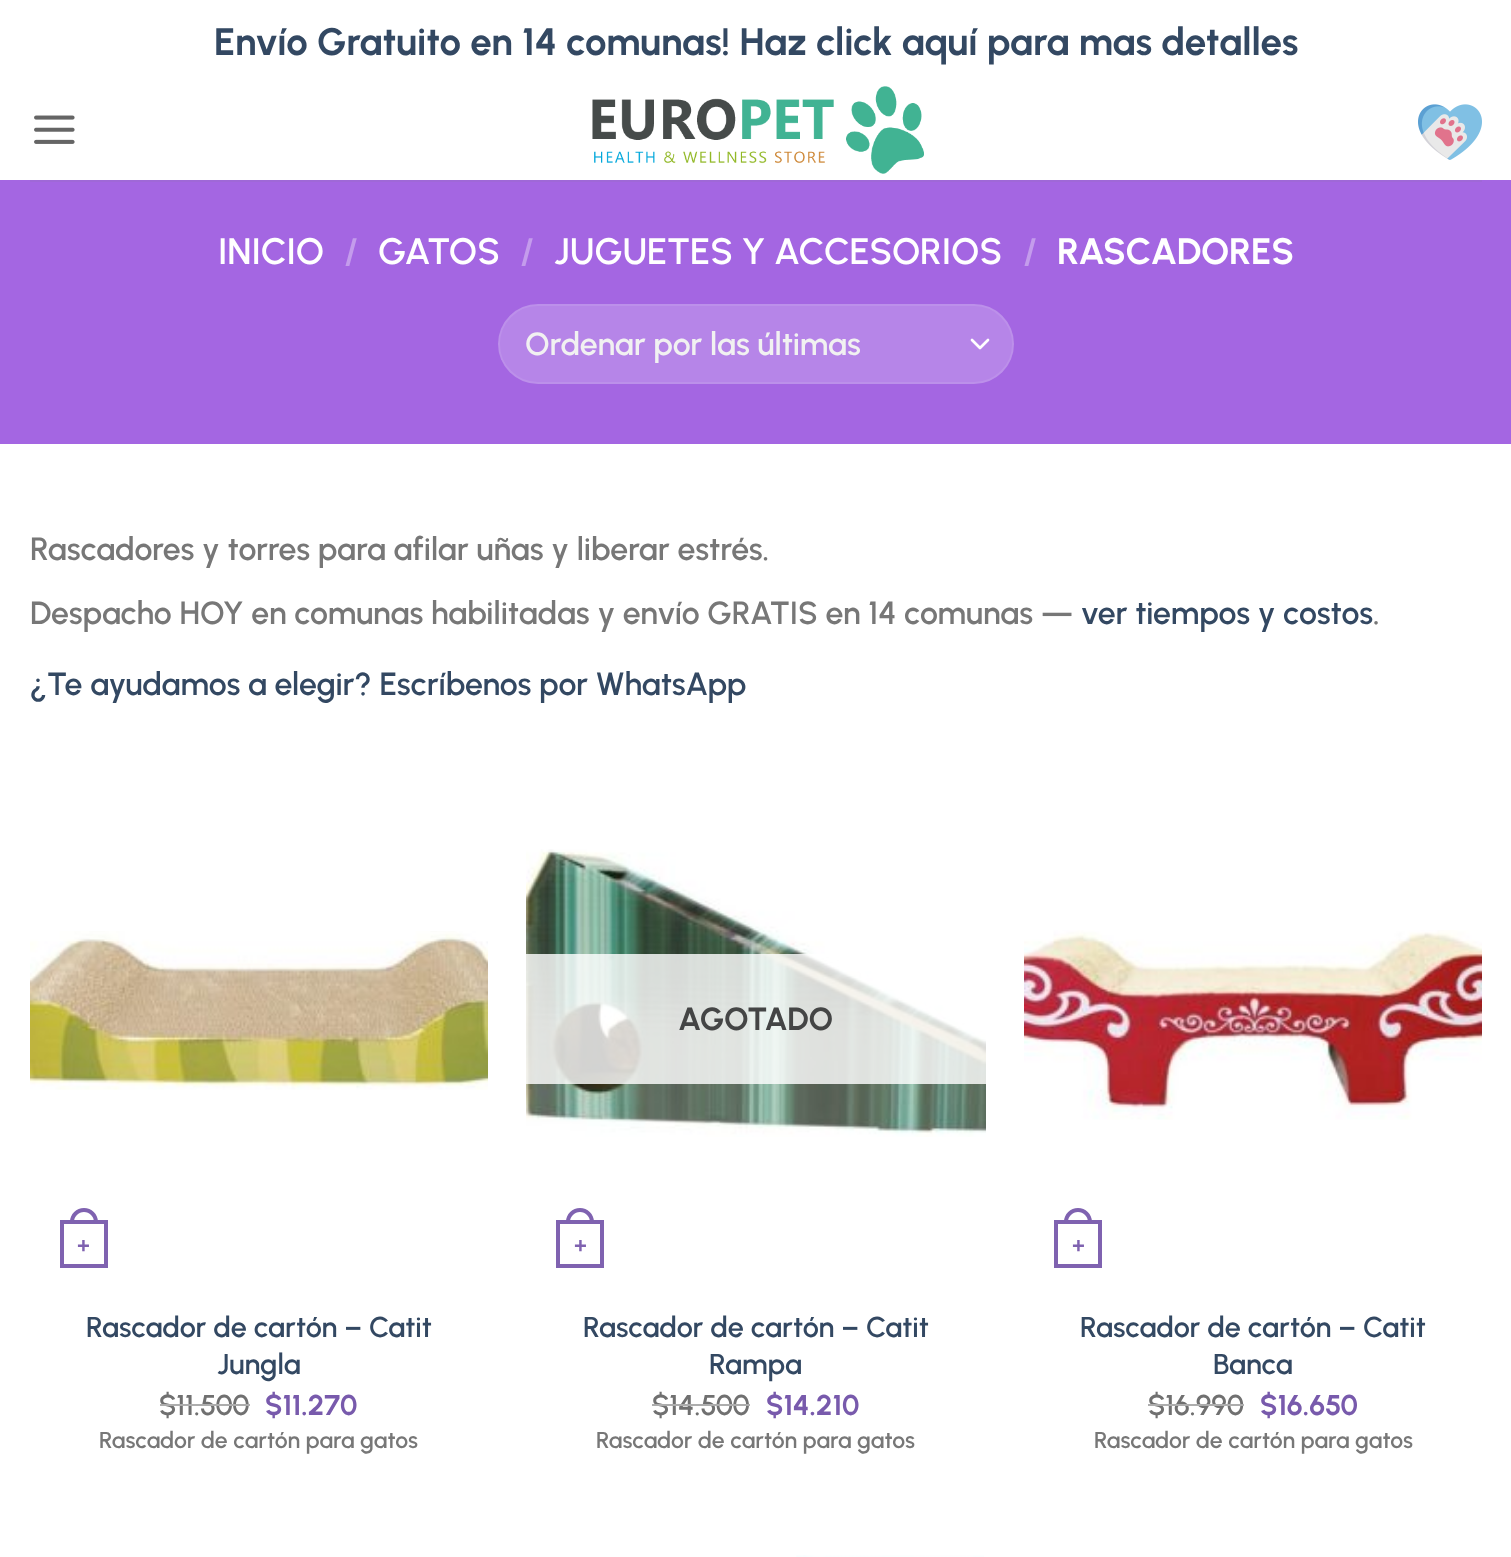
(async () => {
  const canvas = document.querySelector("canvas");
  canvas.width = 1511;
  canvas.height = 1557;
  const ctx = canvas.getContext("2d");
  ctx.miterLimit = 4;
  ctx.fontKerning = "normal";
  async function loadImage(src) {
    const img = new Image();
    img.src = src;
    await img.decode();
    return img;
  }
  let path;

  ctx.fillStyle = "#ffffff";
  ctx.fillRect(0, 0, 1511, 1557);
  ctx.drawImage(await loadImage("img/1.png"), 34, 115, 41, 29);
  ctx.drawImage(await loadImage("img/2.png"), 592, 86, 332, 88);
  ctx.drawImage(await loadImage("img/3.png"), 1418, 104, 64, 56);
  ctx.fillStyle = "#a466e2";
  ctx.fillRect(0, 180, 1511, 264);
  ctx.fillStyle = "#9f68d7";
  ctx.fillRect(30, 180, 1452, 2);
  ctx.fillStyle = "#b685e8";
  ctx.beginPath();
  ctx.roundRect(498, 304, 516, 80, 40);
  ctx.fill();
  path = new Path2D("M972 340L980 348L988 340");
  ctx.strokeStyle = "#ffffff";
  ctx.lineWidth = 2.7;
  ctx.lineCap = "round";
  ctx.lineJoin = "round";
  ctx.stroke(path);
  ctx.beginPath();
  ctx.roundRect(499, 305, 514, 78, 39);
  ctx.strokeStyle = "rgba(255, 255, 255, 0.09)";
  ctx.lineWidth = 2;
  ctx.lineJoin = "miter";
  ctx.stroke();
  ctx.drawImage(await loadImage("img/4.png"), 30, 931, 458, 159);
  ctx.strokeStyle = "#7f62b0";
  ctx.lineWidth = 4;
  ctx.strokeRect(62, 1222, 44, 44);
  ctx.fillStyle = "#7f62b0";
  path = new Path2D("M84 1208C91.5 1208 98 1214 98 1222V1224H70V1222C70 1214 76.5 1208 84 1208ZM84 1212C89.5 1212 94 1216.5 94 1222V1224H74V1222C74 1216.5 78.5 1212 84 1212Z");
  ctx.fill(path, "evenodd");
  ctx.drawImage(await loadImage("img/5.png"), 526, 849, 460, 288);
  ctx.fillStyle = "rgba(255, 255, 255, 0.81)";
  ctx.fillRect(526, 954, 460, 130);
  ctx.strokeRect(558, 1222, 44, 44);
  ctx.fillStyle = "#7f62b0";
  path = new Path2D("M580 1208C587.5 1208 594 1214 594 1222V1224H566V1222C566 1214 572.5 1208 580 1208ZM580 1212C585.5 1212 590 1216.5 590 1222V1224H570V1222C570 1216.5 574.5 1212 580 1212Z");
  ctx.fill(path, "evenodd");
  ctx.drawImage(await loadImage("img/6.png"), 1024, 930, 458, 190);
  ctx.strokeRect(1056, 1222, 44, 44);
  path = new Path2D("M1078 1208C1085.5 1208 1092 1214 1092 1222V1224H1064V1222C1064 1214 1070.5 1208 1078 1208ZM1078 1212C1083.5 1212 1088 1216.5 1088 1222V1224H1068V1222C1068 1216.5 1072.5 1212 1078 1212Z");
  ctx.fill(path, "evenodd");
  ctx.drawImage(await loadImage("img/7.png"), 796, 1555, 188, 2);
  ctx.font = "bold 38.4px Urbanist";
  ctx.fillStyle = "#334862";
  ctx.fillText("Envío Gratuito en 14 comunas! Haz click aquí para mas detalles", 214, 55);
  ctx.font = "600 36.75px Urbanist";
  ctx.fillStyle = "#ffffff";
  ctx.fillText("INICIO", 218, 264);
  ctx.fillStyle = "#c49cec";
  ctx.fillText("/", 344, 264);
  ctx.fillStyle = "#ffffff";
  ctx.fillText("GATOS", 378, 264);
  ctx.fillStyle = "#c49cec";
  ctx.fillText("/", 520, 264);
  ctx.fillStyle = "#ffffff";
  ctx.fillText("JUGUETES Y ACCESORIOS", 554, 264);
  ctx.fillStyle = "#c49cec";
  ctx.fillText("/", 1023, 264);
  ctx.font = "bold 36.75px Urbanist";
  ctx.fillStyle = "#ffffff";
  ctx.fillText("RASCADORES", 1057, 264);
  ctx.font = "600 32px Urbanist";
  ctx.fillStyle = "#f1f1f1";
  ctx.fillText("Ordenar por las últimas", 525, 355);
  ctx.fillStyle = "#777777";
  ctx.fillText("Rascadores y torres para afilar uñas y liberar estrés.", 30, 560);
  ctx.fillText("Despacho HOY en comunas habilitadas y envío GRATIS en 14 comunas —", 30, 624);
  ctx.fillStyle = "#334862";
  ctx.fillText("ver tiempos y costos", 1081, 624);
  ctx.fillStyle = "#777777";
  ctx.fillText(".", 1373, 624);
  ctx.fillStyle = "#334862";
  ctx.fillText("¿Te ayudamos a elegir? Escríbenos por WhatsApp", 30, 695);
  ctx.font = "bold 22px Liberation Sans";
  ctx.fillStyle = "#7f62b0";
  ctx.fillText("+", 77, 1253);
  ctx.font = "600 28.75px Urbanist";
  ctx.fillStyle = "#334862";
  ctx.fillText("Rascador de cartón – Catit", 86, 1337);
  ctx.fillText("Jungla", 217, 1374);
  ctx.fillStyle = "#707070";
  ctx.fillText("$11.500", 159, 1415);
  ctx.fillStyle = "#adadad";
  ctx.fillRect(160, 1404, 90, 2);
  ctx.font = "bold 28.75px Urbanist";
  ctx.fillStyle = "#785aac";
  ctx.fillText("$11.270", 265, 1415);
  ctx.font = "600 23px Urbanist";
  ctx.fillStyle = "#777777";
  ctx.fillText("Rascador de cartón para gatos", 99, 1448);
  ctx.font = "bold 32px Urbanist";
  ctx.fillStyle = "#444545";
  ctx.fillText("AGOTADO", 678, 1030);
  ctx.font = "bold 22px Liberation Sans";
  ctx.fillStyle = "#7f62b0";
  ctx.fillText("+", 574, 1253);
  ctx.font = "600 28.75px Urbanist";
  ctx.fillStyle = "#334862";
  ctx.fillText("Rascador de cartón – Catit", 583, 1337);
  ctx.fillText("Rampa", 709, 1374);
  ctx.fillStyle = "#707070";
  ctx.fillText("$14.500", 652, 1415);
  ctx.fillStyle = "#adadad";
  ctx.fillRect(652, 1404, 98, 2);
  ctx.font = "bold 28.75px Urbanist";
  ctx.fillStyle = "#785aac";
  ctx.fillText("$14.210", 766, 1415);
  ctx.font = "600 23px Urbanist";
  ctx.fillStyle = "#777777";
  ctx.fillText("Rascador de cartón para gatos", 596, 1448);
  ctx.font = "bold 22px Liberation Sans";
  ctx.fillStyle = "#7f62b0";
  ctx.fillText("+", 1072, 1253);
  ctx.font = "600 28.75px Urbanist";
  ctx.fillStyle = "#334862";
  ctx.fillText("Rascador de cartón – Catit", 1080, 1337);
  ctx.fillText("Banca", 1213, 1374);
  ctx.fillStyle = "#707070";
  ctx.fillText("$16.990", 1148, 1415);
  ctx.fillStyle = "#adadad";
  ctx.fillRect(1148, 1404, 96, 2);
  ctx.font = "bold 28.75px Urbanist";
  ctx.fillStyle = "#785aac";
  ctx.fillText("$16.650", 1260, 1415);
  ctx.font = "600 23px Urbanist";
  ctx.fillStyle = "#777777";
  ctx.fillText("Rascador de cartón para gatos", 1094, 1448);
})();
